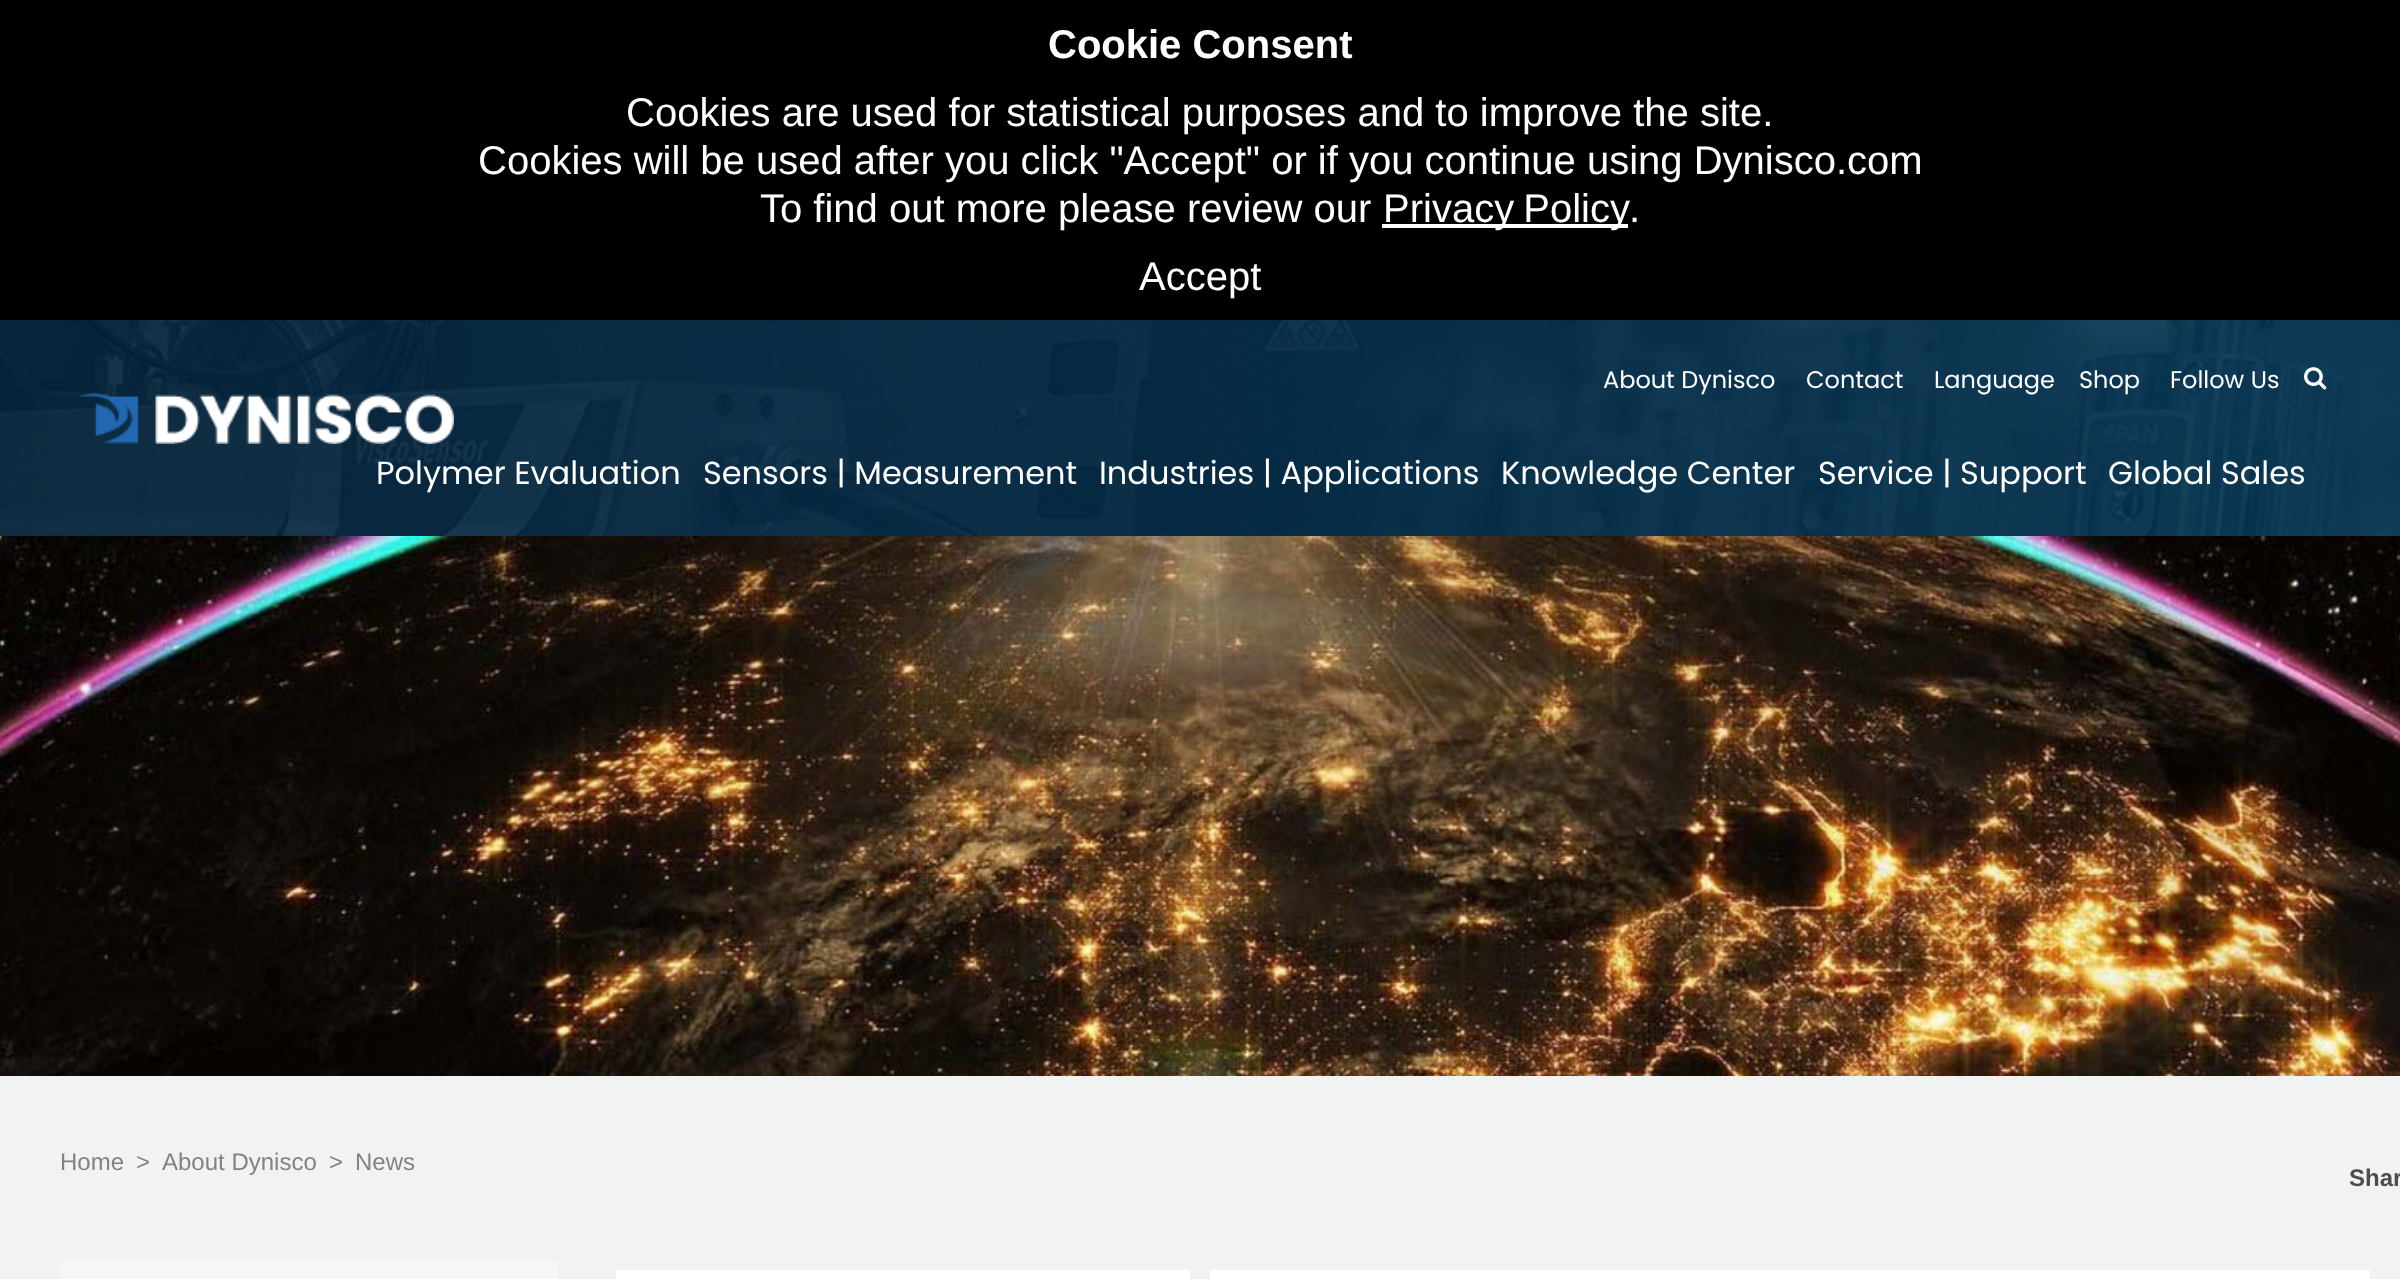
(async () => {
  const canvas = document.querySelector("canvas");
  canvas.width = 2400;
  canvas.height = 1279;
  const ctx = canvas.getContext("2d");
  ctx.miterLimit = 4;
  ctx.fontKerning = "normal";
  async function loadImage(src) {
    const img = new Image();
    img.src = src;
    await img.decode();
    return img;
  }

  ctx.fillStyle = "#000000";
  ctx.fillRect(0, 0, 2400, 1279);
  ctx.fillStyle = "#ffffff";
  ctx.fillRect(1382, 224, 246, 4);
  ctx.drawImage(await loadImage("img/1.png"), 0, 320, 2400, 216);
  ctx.drawImage(await loadImage("img/2.png"), 2304, 367, 23, 23);
  ctx.drawImage(await loadImage("img/3.png"), 80, 392, 374, 52);
  ctx.drawImage(await loadImage("img/4.png"), 0, 536, 2400, 540);
  for (const [x, y, w, h, color] of [
    [0, 1076, 2400, 203, "#f1f2f2"],
    [60, 1260, 498, 19, "#f5f6f6"],
    [616, 1270, 574, 9, "#ffffff"],
    [1210, 1270, 1160, 9, "#ffffff"],
  ]) {
    ctx.fillStyle = color;
    ctx.fillRect(x, y, w, h);
  }
  ctx.font = "bold 40px Liberation Sans";
  ctx.fillText("Cookie Consent", 1048, 58);
  ctx.font = "40px Liberation Sans";
  for (const [text, x, y] of [
    ["Cookies are used for statistical purposes and to improve the site.", 626, 126],
    ["Cookies will be used after you click \"Accept\" or if you continue using Dynisco.com", 478, 174],
    ["To find out more please review our", 760, 222],
  ]) {
    ctx.fillText(text, x, y);
  }
  ctx.wordSpacing = "-2px";
  ctx.fillText("Privacy Policy", 1383, 222);
  ctx.wordSpacing = "0px";
  ctx.fillText(".", 1629, 222);
  ctx.fillText("Accept", 1139, 290);
  ctx.font = "24px Poppins";
  for (const [text, x, y] of [
    ["About Dynisco", 1603, 388],
    ["Contact", 1806, 388],
    ["Language", 1934, 388],
    ["Shop", 2079, 388],
    ["Follow Us", 2170, 388],
  ]) {
    ctx.fillText(text, x, y);
  }
  ctx.font = "32px Poppins";
  for (const [text, x, y] of [
    ["Polymer Evaluation", 376, 484],
    ["Sensors | Measurement", 703, 484],
    ["Industries | Applications", 1099, 484],
    ["Knowledge Center", 1501, 484],
    ["Service | Support", 1818, 484],
    ["Global Sales", 2108, 484],
  ]) {
    ctx.fillText(text, x, y);
  }
  ctx.font = "24px Liberation Sans";
  ctx.fillStyle = "#808285";
  for (const [text, x, y] of [
    ["Home", 60, 1170],
    [">", 136, 1170],
    ["About Dynisco", 162, 1170],
    [">", 329, 1170],
    ["News", 355, 1170],
  ]) {
    ctx.fillText(text, x, y);
  }
  ctx.font = "bold 24px Liberation Sans";
  ctx.fillStyle = "#4f4c4c";
  ctx.fillText("Shar", 2349, 1186);
})();
